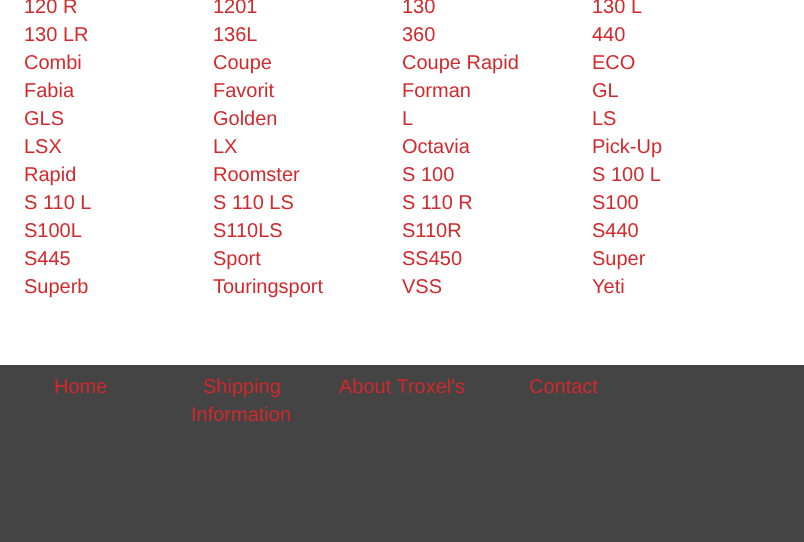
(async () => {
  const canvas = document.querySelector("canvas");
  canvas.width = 804;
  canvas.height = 542;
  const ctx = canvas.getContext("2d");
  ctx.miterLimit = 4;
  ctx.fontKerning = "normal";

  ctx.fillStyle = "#ffffff";
  ctx.fillRect(0, 0, 804, 542);
  ctx.fillStyle = "#444444";
  ctx.fillRect(0, 365, 804, 177);
  ctx.font = "20px Liberation Sans";
  ctx.fillStyle = "#d2292c";
  for (const [text, x, y] of [
    ["120 R", 24, 13],
    ["1201", 213, 13],
    ["130", 402, 13],
    ["130 L", 592, 13],
    ["130 LR", 24, 41],
    ["136L", 213, 41],
    ["360", 402, 41],
    ["440", 592, 41],
    ["Combi", 24, 69],
    ["Coupe", 213, 69],
    ["Coupe Rapid", 402, 69],
    ["ECO", 592, 69],
    ["Fabia", 24, 97],
    ["Favorit", 213, 97],
    ["Forman", 402, 97],
    ["GL", 592, 97],
    ["GLS", 24, 125],
    ["Golden", 213, 125],
    ["L", 402, 125],
    ["LS", 592, 125],
    ["LSX", 24, 153],
    ["LX", 213, 153],
    ["Octavia", 402, 153],
    ["Pick-Up", 592, 153],
    ["Rapid", 24, 181],
    ["Roomster", 213, 181],
    ["S 100", 402, 181],
    ["S 100 L", 592, 181],
    ["S 110 L", 24, 209],
    ["S 110 LS", 213, 209],
    ["S 110 R", 402, 209],
    ["S100", 592, 209],
    ["S100L", 24, 237],
    ["S110LS", 213, 237],
    ["S110R", 402, 237],
    ["S440", 592, 237],
    ["S445", 24, 265],
    ["Sport", 213, 265],
    ["SS450", 402, 265],
    ["Super", 592, 265],
    ["Superb", 24, 293],
    ["Touringsport", 213, 293],
    ["VSS", 402, 293],
    ["Yeti", 592, 293],
    ["Home", 54, 393],
    ["Shipping", 203, 393],
    ["Information", 191, 421],
    ["About Troxel's", 339, 393],
    ["Contact", 529, 393],
  ]) {
    ctx.fillText(text, x, y);
  }
})();
